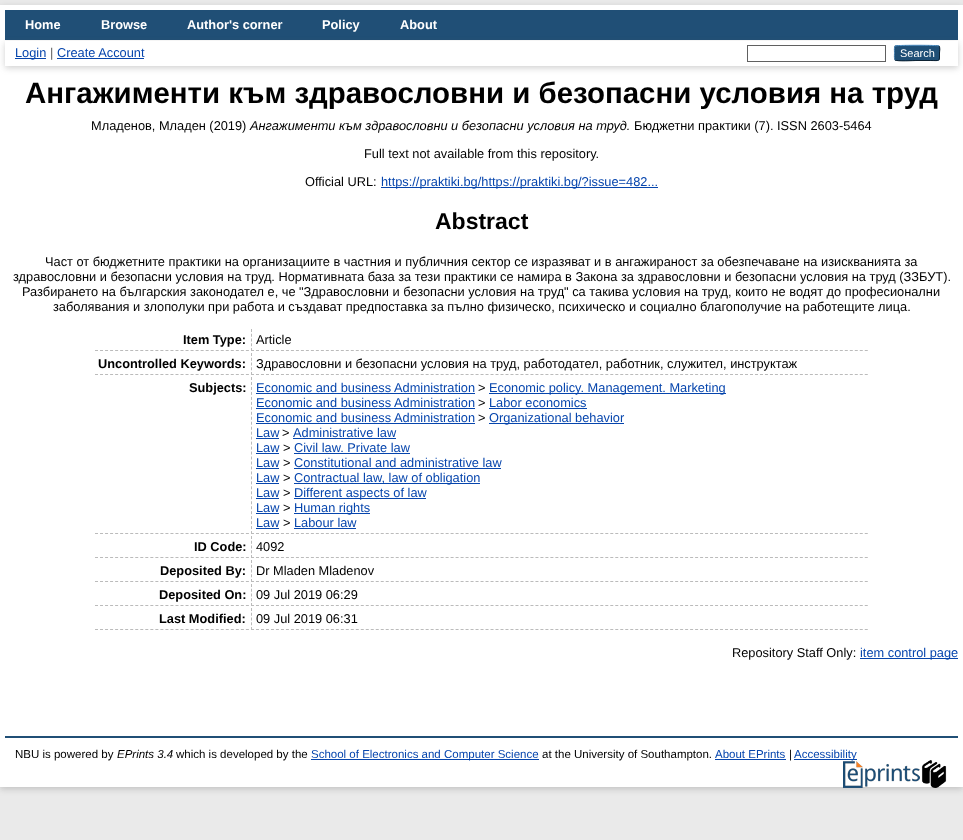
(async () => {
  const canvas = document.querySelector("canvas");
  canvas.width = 963;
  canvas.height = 840;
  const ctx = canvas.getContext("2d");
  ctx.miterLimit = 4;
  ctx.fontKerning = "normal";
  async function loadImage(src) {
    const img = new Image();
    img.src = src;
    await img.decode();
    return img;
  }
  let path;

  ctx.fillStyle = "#eaeaea";
  ctx.fillRect(0, 0, 963, 840);
  ctx.fillStyle = "rgba(100, 100, 100, 0.3)";
  ctx.filter = "blur(3px)";
  ctx.beginPath();
  ctx.rect(0, 7, 963, 782);
  ctx.fill();
  ctx.filter = "none";
  ctx.fillStyle = "#ffffff";
  ctx.fillRect(0, 5, 963, 782);
  ctx.fillStyle = "#204f76";
  ctx.fillRect(5, 10, 953, 30);
  ctx.fillStyle = "rgba(100, 100, 100, 0.3)";
  ctx.filter = "blur(3px)";
  ctx.beginPath();
  ctx.rect(5, 43, 953, 25);
  ctx.fill();
  ctx.filter = "none";
  for (const [x, y, w, h, color] of [
    [5, 41, 953, 25, "#ffffff"],
    [15, 58, 31, 1, "#0645ad"],
    [57, 58, 87, 1, "#0645ad"],
  ]) {
    ctx.fillStyle = color;
    ctx.fillRect(x, y, w, h);
  }
  ctx.strokeStyle = "#606060";
  ctx.strokeRect(747.5, 45.5, 138, 16);
  ctx.fillStyle = "#1f4f76";
  ctx.beginPath();
  ctx.roundRect(894, 45, 46, 16, 3);
  ctx.fill();
  path = new Path2D("M895 46C896.5 45 937.5 45 939 46");
  ctx.strokeStyle = "#5b97c7";
  ctx.stroke(path);
  path = new Path2D("M939 46C940.5 48 939.5 51 939.5 53C939.5 62 940 60.5 930.5 60.5H917C913.5 60.5 897 61.5 895 60");
  ctx.strokeStyle = "#0d2131";
  ctx.stroke(path);
  path = new Path2D("M895 60C894 58.5 894.5 54.5 894.5 53C894.5 51.5 894 47.5 895 46");
  ctx.strokeStyle = "#5287b3";
  ctx.stroke(path);
  ctx.fillStyle = "#0645ad";
  ctx.fillRect(381, 187, 277, 1);
  path = new Path2D("M95 350.5H249");
  ctx.strokeStyle = "#bbbbbb";
  ctx.setLineDash([3, 2.03]);
  ctx.stroke(path);
  path = new Path2D("M251 350.5H868");
  ctx.setLineDash([3, 1.99]);
  ctx.stroke(path);
  path = new Path2D("M251.5 329V351");
  ctx.setLineDash([3, 1.75]);
  ctx.stroke(path);
  path = new Path2D("M95 374.5H249");
  ctx.setLineDash([3, 2.03]);
  ctx.stroke(path);
  path = new Path2D("M251 374.5H868");
  ctx.setLineDash([3, 1.99]);
  ctx.stroke(path);
  path = new Path2D("M251.5 353V375");
  ctx.setLineDash([3, 1.75]);
  ctx.stroke(path);
  path = new Path2D("M95 533.5H249");
  ctx.setLineDash([3, 2.03]);
  ctx.stroke(path);
  path = new Path2D("M251 533.5H868");
  ctx.setLineDash([3, 1.99]);
  ctx.stroke(path);
  path = new Path2D("M251.5 377V534");
  ctx.setLineDash([3, 1.97]);
  ctx.stroke(path);
  for (const [x, y, w, h, color] of [
    [256, 393, 219, 1, "#0645ad"],
    [489, 393, 237, 1, "#0645ad"],
    [256, 408, 219, 1, "#0645ad"],
    [489, 408, 98, 1, "#0645ad"],
    [256, 423, 219, 1, "#0645ad"],
    [489, 423, 135, 1, "#0645ad"],
    [256, 438, 23, 1, "#0645ad"],
    [293, 438, 103, 1, "#0645ad"],
    [256, 453, 23, 1, "#0645ad"],
    [294, 453, 116, 1, "#0645ad"],
    [256, 468, 23, 1, "#0645ad"],
    [294, 468, 207, 1, "#0645ad"],
    [256, 483, 23, 1, "#0645ad"],
    [294, 483, 186, 1, "#0645ad"],
    [256, 498, 23, 1, "#0645ad"],
    [294, 498, 132, 1, "#0645ad"],
    [256, 513, 23, 1, "#0645ad"],
    [294, 513, 76, 1, "#0645ad"],
    [256, 528, 23, 1, "#0645ad"],
    [294, 528, 62, 1, "#0645ad"],
  ]) {
    ctx.fillStyle = color;
    ctx.fillRect(x, y, w, h);
  }
  path = new Path2D("M95 557.5H249");
  ctx.setLineDash([3, 2.03]);
  ctx.stroke(path);
  path = new Path2D("M251 557.5H868");
  ctx.setLineDash([3, 1.99]);
  ctx.stroke(path);
  path = new Path2D("M251.5 536V558");
  ctx.setLineDash([3, 1.75]);
  ctx.stroke(path);
  path = new Path2D("M95 581.5H249");
  ctx.setLineDash([3, 2.03]);
  ctx.stroke(path);
  path = new Path2D("M251 581.5H868");
  ctx.setLineDash([3, 1.99]);
  ctx.stroke(path);
  path = new Path2D("M251.5 560V582");
  ctx.setLineDash([3, 1.75]);
  ctx.stroke(path);
  path = new Path2D("M95 605.5H249");
  ctx.setLineDash([3, 2.03]);
  ctx.stroke(path);
  path = new Path2D("M251 605.5H868");
  ctx.setLineDash([3, 1.99]);
  ctx.stroke(path);
  path = new Path2D("M251.5 584V606");
  ctx.setLineDash([3, 1.75]);
  ctx.stroke(path);
  path = new Path2D("M95 629.5H249");
  ctx.setLineDash([3, 2.03]);
  ctx.stroke(path);
  path = new Path2D("M251 629.5H868");
  ctx.setLineDash([3, 1.99]);
  ctx.stroke(path);
  path = new Path2D("M251.5 608V630");
  ctx.setLineDash([3, 1.75]);
  ctx.stroke(path);
  for (const [x, y, w, h, color] of [
    [860, 658, 98, 1, "#0645ad"],
    [5, 736, 953, 2, "#204f76"],
    [311, 759, 228, 1, "#0645ad"],
    [715, 759, 71, 1, "#0645ad"],
    [794, 759, 63, 1, "#0645ad"],
  ]) {
    ctx.fillStyle = color;
    ctx.fillRect(x, y, w, h);
  }
  ctx.drawImage(await loadImage("img/1.png"), 843, 761, 77, 27);
  ctx.drawImage(await loadImage("img/2.png"), 921, 760, 26, 28);
  ctx.font = "bold 12.8px Liberation Sans";
  ctx.fillStyle = "#ffffff";
  for (const [text, x, y] of [
    ["Home", 25, 29],
    ["Browse", 101, 29],
    ["Author's corner", 187, 29],
    ["Policy", 322, 29],
    ["About", 400, 29],
  ]) {
    ctx.fillText(text, x, y);
  }
  ctx.font = "12.8px Liberation Sans";
  ctx.fillStyle = "#0645ad";
  ctx.fillText("Login", 15, 57);
  ctx.fillStyle = "#606060";
  ctx.fillText("|", 50, 57);
  ctx.fillStyle = "#0645ad";
  ctx.fillText("Create Account", 57, 57);
  ctx.font = "11px Liberation Sans";
  ctx.fillStyle = "#ffffff";
  ctx.fillText("Search", 900, 57);
  ctx.font = "bold 29.45px Liberation Sans";
  ctx.fillStyle = "#000000";
  ctx.fillText("Ангажименти към здравословни и безопасни условия на труд", 25, 103);
  ctx.font = "12.8px Liberation Sans";
  ctx.fillText("Младенов, Младен (2019)", 91, 130);
  ctx.font = "italic 12.8px Liberation Sans";
  ctx.fillText("Ангажименти към здравословни и безопасни условия на труд.", 250, 130);
  ctx.font = "12.8px Liberation Sans";
  for (const [text, x, y] of [
    ["Бюджетни практики (7). ISSN 2603-5464", 634, 130],
    ["Full text not available from this repository.", 364, 158],
    ["Official URL:", 305, 186],
  ]) {
    ctx.fillText(text, x, y);
  }
  ctx.fillStyle = "#0645ad";
  ctx.fillText("https://praktiki.bg/https://praktiki.bg/?issue=482...", 381, 186);
  ctx.font = "bold 23px Liberation Sans";
  ctx.fillStyle = "#000000";
  ctx.fillText("Abstract", 435, 229);
  ctx.font = "12.8px Liberation Sans";
  for (const [text, x, y] of [
    ["Част от бюджетните практики на организациите в частния и публичния сектор се изразяват и в ангажираност за обезпечаване на изискванията за", 45, 266],
    ["здравословни и безопасни условия на труд. Нормативната база за тези практики се намира в Закона за здравословни и безопасни условия на труд (ЗЗБУТ).", 13, 281],
    ["Разбирането на българския законодател е, че \"Здравословни и безопасни условия на труд\" са такива условия на труд, които не водят до професионални", 22, 296],
    ["заболявания и злополуки при работа и създават предпоставка за пълно физическо, психическо и социално благополучие на работещите лица.", 53, 311],
  ]) {
    ctx.fillText(text, x, y);
  }
  ctx.font = "bold 12.8px Liberation Sans";
  ctx.fillText("Item Type:", 183, 344);
  ctx.font = "12.8px Liberation Sans";
  ctx.fillText("Article", 256, 344);
  ctx.font = "bold 12.8px Liberation Sans";
  ctx.fillText("Uncontrolled Keywords:", 98, 368);
  ctx.font = "12.8px Liberation Sans";
  ctx.fillText("Здравословни и безопасни условия на труд, работодател, работник, служител, инструктаж", 256, 368);
  ctx.font = "bold 12.8px Liberation Sans";
  ctx.fillText("Subjects:", 189, 392);
  ctx.font = "12.8px Liberation Sans";
  ctx.fillStyle = "#0645ad";
  ctx.fillText("Economic and business Administration", 256, 392);
  ctx.fillStyle = "#000000";
  ctx.fillText(">", 478, 392);
  ctx.fillStyle = "#0645ad";
  ctx.fillText("Economic policy. Management. Marketing", 489, 392);
  ctx.fillText("Economic and business Administration", 256, 407);
  ctx.fillStyle = "#000000";
  ctx.fillText(">", 478, 407);
  ctx.fillStyle = "#0645ad";
  ctx.fillText("Labor economics", 489, 407);
  ctx.fillText("Economic and business Administration", 256, 422);
  ctx.fillStyle = "#000000";
  ctx.fillText(">", 478, 422);
  ctx.fillStyle = "#0645ad";
  ctx.fillText("Organizational behavior", 489, 422);
  ctx.fillText("Law", 256, 437);
  ctx.fillStyle = "#000000";
  ctx.fillText(">", 282, 437);
  ctx.fillStyle = "#0645ad";
  ctx.fillText("Administrative law", 293, 437);
  ctx.fillText("Law", 256, 452);
  ctx.fillStyle = "#000000";
  ctx.fillText(">", 283, 452);
  ctx.fillStyle = "#0645ad";
  ctx.fillText("Civil law. Private law", 294, 452);
  ctx.fillText("Law", 256, 467);
  ctx.fillStyle = "#000000";
  ctx.fillText(">", 283, 467);
  ctx.fillStyle = "#0645ad";
  ctx.fillText("Constitutional and administrative law", 294, 467);
  ctx.fillText("Law", 256, 482);
  ctx.fillStyle = "#000000";
  ctx.fillText(">", 283, 482);
  ctx.fillStyle = "#0645ad";
  ctx.fillText("Contractual law, law of obligation", 294, 482);
  ctx.fillText("Law", 256, 497);
  ctx.fillStyle = "#000000";
  ctx.fillText(">", 283, 497);
  ctx.fillStyle = "#0645ad";
  ctx.fillText("Different aspects of law", 294, 497);
  ctx.fillText("Law", 256, 512);
  ctx.fillStyle = "#000000";
  ctx.fillText(">", 283, 512);
  ctx.fillStyle = "#0645ad";
  ctx.fillText("Human rights", 294, 512);
  ctx.fillText("Law", 256, 527);
  ctx.fillStyle = "#000000";
  ctx.fillText(">", 283, 527);
  ctx.fillStyle = "#0645ad";
  ctx.fillText("Labour law", 294, 527);
  ctx.font = "bold 12.8px Liberation Sans";
  ctx.fillStyle = "#000000";
  ctx.fillText("ID Code:", 194, 551);
  ctx.font = "12.8px Liberation Sans";
  ctx.fillText("4092", 256, 551);
  ctx.font = "bold 12.8px Liberation Sans";
  ctx.fillText("Deposited By:", 160, 575);
  ctx.font = "12.8px Liberation Sans";
  ctx.fillText("Dr Mladen Mladenov", 256, 575);
  ctx.font = "bold 12.8px Liberation Sans";
  ctx.fillText("Deposited On:", 159, 599);
  ctx.font = "12.8px Liberation Sans";
  ctx.fillText("09 Jul 2019 06:29", 256, 599);
  ctx.font = "bold 12.8px Liberation Sans";
  ctx.fillText("Last Modified:", 159, 623);
  ctx.font = "12.8px Liberation Sans";
  ctx.fillText("09 Jul 2019 06:31", 256, 623);
  ctx.fillText("Repository Staff Only:", 732, 657);
  ctx.fillStyle = "#0645ad";
  ctx.fillText("item control page", 860, 657);
  ctx.font = "11.5px Liberation Sans";
  ctx.fillStyle = "#000000";
  ctx.fillText("NBU is powered by", 15, 758);
  ctx.font = "italic 11.5px Liberation Sans";
  ctx.fillText("EPrints 3.4", 117, 758);
  ctx.font = "11.5px Liberation Sans";
  ctx.fillText("which is developed by the", 176, 758);
  ctx.fillStyle = "#0645ad";
  ctx.fillText("School of Electronics and Computer Science", 311, 758);
  ctx.fillStyle = "#000000";
  ctx.fillText("at the University of Southampton.", 542, 758);
  ctx.fillStyle = "#0645ad";
  ctx.fillText("About EPrints", 715, 758);
  ctx.fillStyle = "#000000";
  ctx.fillText("|", 789, 758);
  ctx.fillStyle = "#0645ad";
  ctx.fillText("Accessibility", 794, 758);
})();
